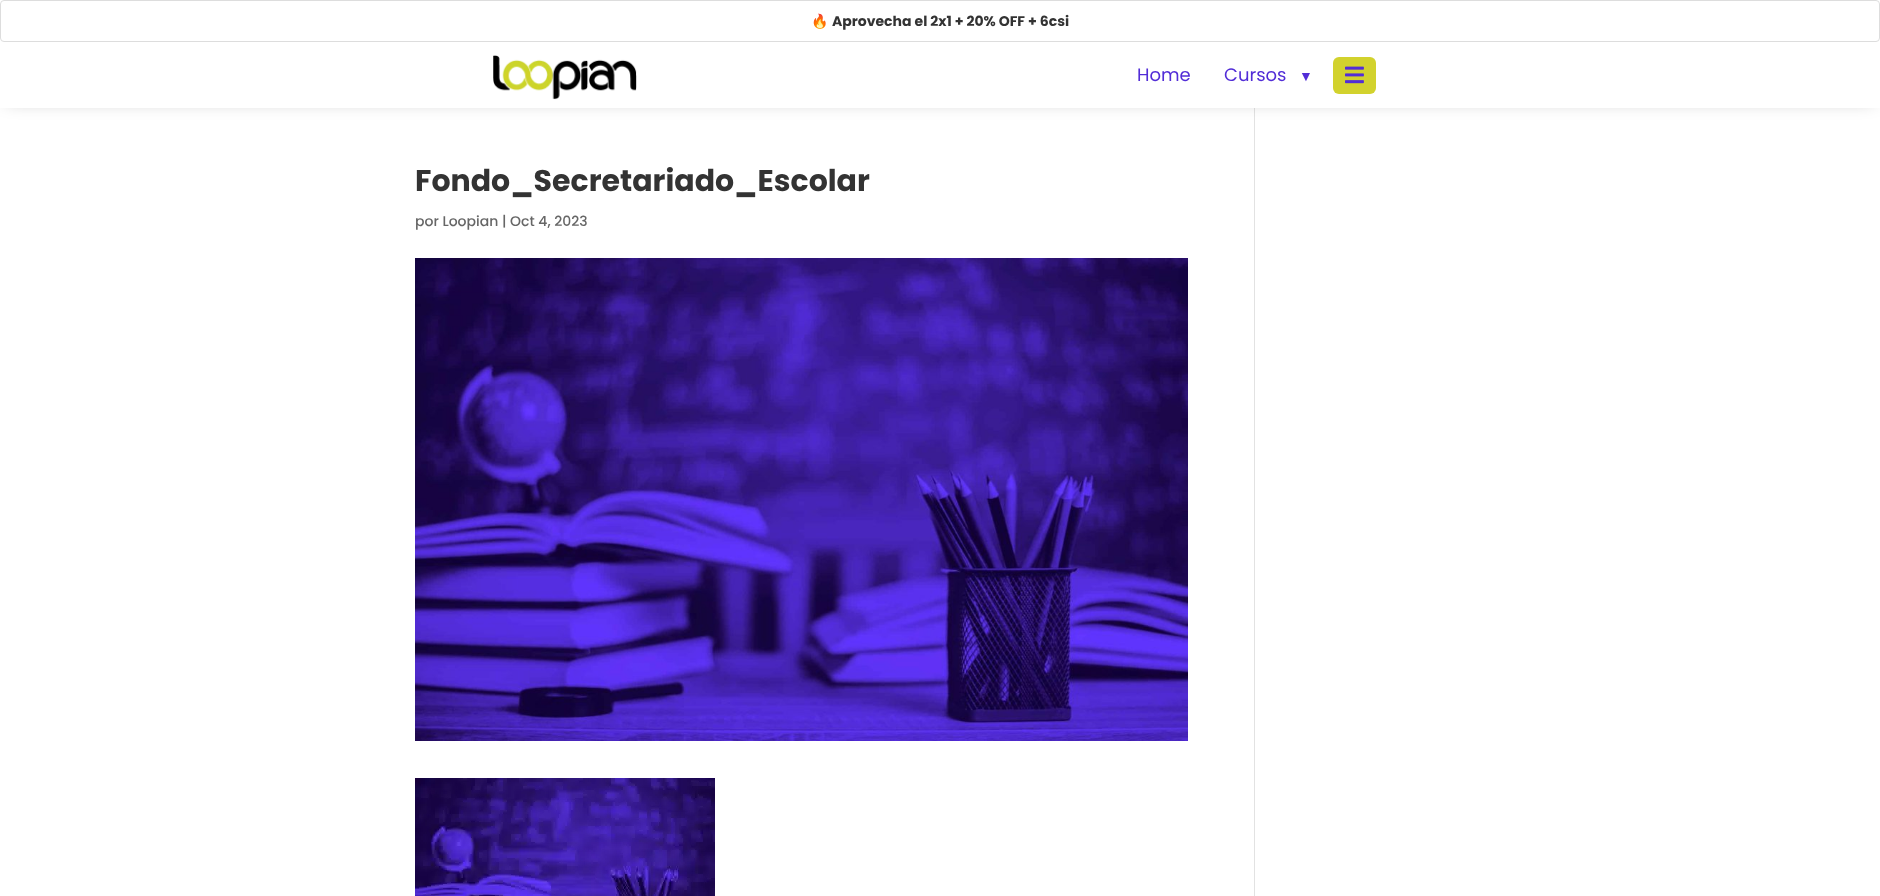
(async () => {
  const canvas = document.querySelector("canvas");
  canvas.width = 1880;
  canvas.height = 896;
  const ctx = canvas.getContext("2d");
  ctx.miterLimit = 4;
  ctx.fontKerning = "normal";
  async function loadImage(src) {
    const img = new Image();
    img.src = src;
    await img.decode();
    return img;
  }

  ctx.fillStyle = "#ffffff";
  ctx.fillRect(0, 0, 1880, 896);
  ctx.fillStyle = "#e2e2e2";
  ctx.fillRect(1254, 108, 1, 788);
  ctx.fillStyle = "rgba(0, 0, 0, 0.3)";
  ctx.filter = "blur(9px)";
  ctx.beginPath();
  ctx.rect(6, 4, 1868, 96);
  ctx.fill();
  ctx.filter = "none";
  ctx.fillStyle = "#ffffff";
  ctx.fillRect(0, 0, 1880, 108);
  ctx.beginPath();
  ctx.roundRect(0.5, 0.5, 1879, 41, 3.5);
  ctx.strokeStyle = "#dddddd";
  ctx.stroke();
  ctx.drawImage(await loadImage("img/1.png"), 493, 55, 144, 45);
  ctx.fillStyle = "#d2d22d";
  ctx.beginPath();
  ctx.roundRect(1333, 57, 43, 37, 6);
  ctx.fill();
  ctx.drawImage(await loadImage("img/2.png"), 1345, 66, 19, 18);
  ctx.drawImage(await loadImage("img/3.png"), 415, 258, 773, 483);
  ctx.drawImage(await loadImage("img/4.png"), 415, 778, 300, 118);
  ctx.font = "bold 14px Noto Color Emoji";
  ctx.fillStyle = "#333333";
  ctx.fillText("🔥", 811, 26);
  ctx.font = "bold 14px Poppins";
  ctx.fillText("Aprovecha el 2x1 + 20% OFF + 6csi", 832, 26);
  ctx.font = "18px Poppins";
  ctx.fillStyle = "#522dd7";
  ctx.fillText("Home", 1137, 81);
  ctx.fillText("Cursos", 1224, 81);
  ctx.font = "14px Liberation Sans";
  ctx.fillText("▼", 1299, 81);
  ctx.font = "bold 30px Poppins";
  ctx.fillStyle = "#333333";
  ctx.fillText("Fondo_Secretariado_Escolar", 415, 191);
  ctx.font = "500 14px Poppins";
  ctx.fillStyle = "#666666";
  ctx.fillText("por Loopian | Oct 4, 2023", 415, 226);
})();
